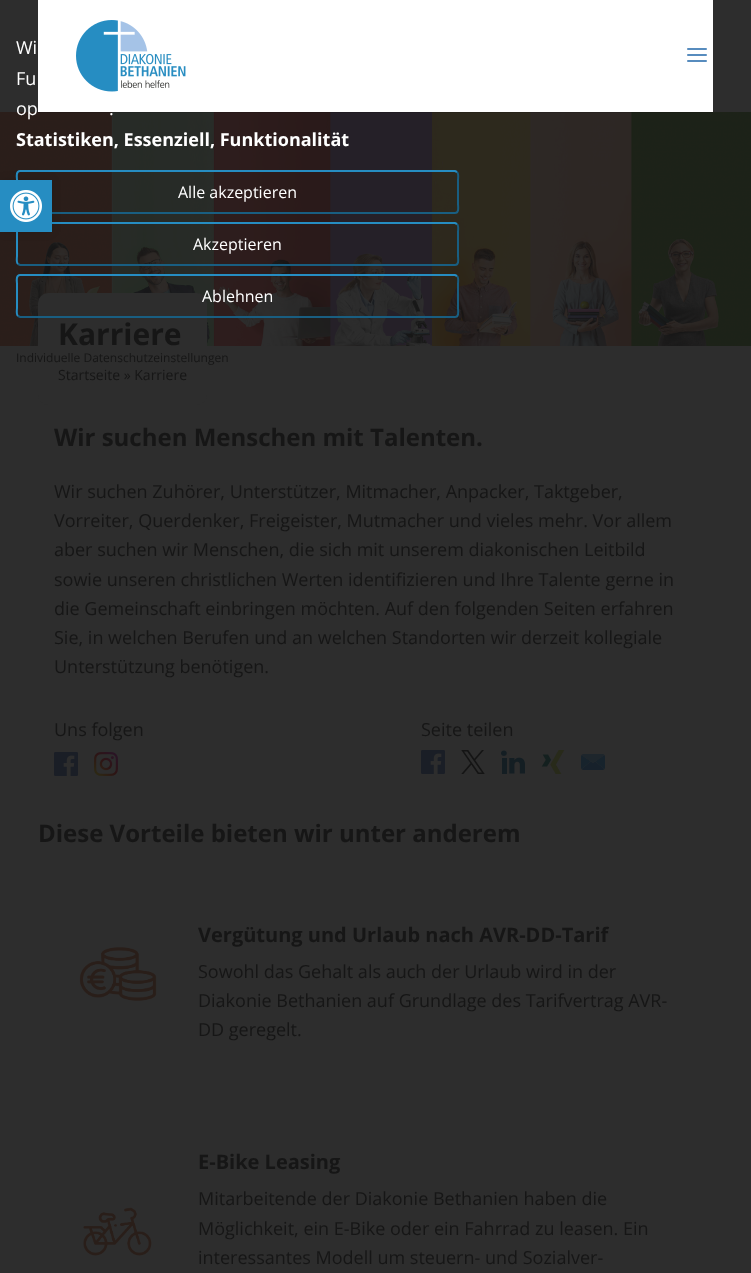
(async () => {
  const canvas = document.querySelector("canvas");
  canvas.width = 751;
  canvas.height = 1273;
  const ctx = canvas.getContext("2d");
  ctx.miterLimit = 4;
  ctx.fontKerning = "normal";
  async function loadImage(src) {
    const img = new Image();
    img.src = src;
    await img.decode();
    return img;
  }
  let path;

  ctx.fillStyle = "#2d2d2d";
  ctx.fillRect(0, 0, 751, 1273);
  ctx.drawImage(await loadImage("img/4.png"), 0, 112, 751, 234);
  path = new Path2D("M457 172C459 173.5 458 178.5 458 180V204C458 206 459.5 213 455 213H20L18 212");
  ctx.strokeStyle = "#195e81";
  ctx.lineWidth = 2;
  ctx.stroke(path);
  path = new Path2D("M18 212C16 210.5 17 205.5 17 204V180C17 178 15.5 171 20 171H455L457 172");
  ctx.strokeStyle = "#268dc2";
  ctx.stroke(path);
  path = new Path2D("M457 224C459 225.5 458 230.5 458 232V256C458 258 459.5 265 455 265H20L18 264");
  ctx.strokeStyle = "#195e81";
  ctx.stroke(path);
  path = new Path2D("M18 264C16 262.5 17 257.5 17 256V232C17 230 15.5 223 20 223H455L457 224");
  ctx.strokeStyle = "#268dc2";
  ctx.stroke(path);
  ctx.beginPath();
  ctx.roundRect(38, 293, 169, 112, 10);
  ctx.fill();
  path = new Path2D("M457 276C459 277.5 458 282.5 458 284V308C458 310 459.5 317 455 317H20L18 316");
  ctx.strokeStyle = "#195e81";
  ctx.stroke(path);
  path = new Path2D("M18 316C16 314.5 17 309.5 17 308V284C17 282 15.5 275 20 275H455L457 276");
  ctx.strokeStyle = "#268dc2";
  ctx.stroke(path);
  ctx.fillStyle = "rgba(0, 0, 0, 0.1)";
  ctx.filter = "blur(5px)";
  ctx.beginPath();
  ctx.rect(0, 180, 52, 52);
  ctx.fill();
  ctx.filter = "none";
  ctx.fillStyle = "#268dc2";
  ctx.fillRect(0, 180, 52, 52);
  ctx.drawImage(await loadImage("img/1.png"), 10, 190, 32, 32);
  ctx.fillStyle = "rgba(0, 0, 0, 0.1)";
  ctx.fillRect(38, 112, 675, 1);
  ctx.fillStyle = "#ffffff";
  ctx.fillRect(38, 0, 675, 112);
  ctx.drawImage(await loadImage("img/2.png"), 76, 20, 110, 72);
  ctx.drawImage(await loadImage("img/3.png"), 687, 48, 20, 14);
  ctx.drawImage(await loadImage("img/5.png"), 54, 752, 24, 24);
  ctx.drawImage(await loadImage("img/6.png"), 94, 752, 24, 24);
  ctx.drawImage(await loadImage("img/5.png"), 421, 750, 24, 24);
  ctx.drawImage(await loadImage("img/7.png"), 461, 750, 24, 24);
  ctx.drawImage(await loadImage("img/8.png"), 501, 750, 24, 24);
  ctx.drawImage(await loadImage("img/9.png"), 541, 750, 24, 24);
  ctx.drawImage(await loadImage("img/10.png"), 581, 754, 24, 16);
  ctx.drawImage(await loadImage("img/11.png"), 79, 947, 78, 54);
  ctx.drawImage(await loadImage("img/12.png"), 83, 1207, 69, 49);
  ctx.font = "18px Open Sans";
  for (const [text, x, y] of [
    ["Wi", 16, 54],
    ["Fu", 16, 85],
    ["op", 16, 115],
    [".", 109, 115],
  ]) {
    ctx.fillText(text, x, y);
  }
  ctx.font = "bold 18px Open Sans";
  ctx.fillText("Statistiken, Essenziell, Funktionalität", 16, 146);
  ctx.font = "16px Open Sans";
  for (const [text, x, y] of [
    ["Alle akzeptieren", 178, 198],
    ["Akzeptieren", 193, 250],
    ["Ablehnen", 202, 302],
  ]) {
    ctx.fillText(text, x, y);
  }
  ctx.font = "12px Open Sans";
  ctx.fillStyle = "#161616";
  ctx.fillText("Individuelle Datenschutzeinstellungen", 16, 362);
  ctx.font = "bold 30px Open Sans";
  ctx.fillText("Karriere", 58, 345);
  ctx.font = "14px Open Sans";
  ctx.fillText("Startseite » Karriere", 58, 380);
  ctx.font = "bold 24px Open Sans";
  ctx.fillText("Wir suchen Menschen mit Talenten.", 54, 446);
  ctx.font = "18px Open Sans";
  for (const [text, x, y] of [
    ["Wir suchen Zuhörer, Unterstützer, Mitmacher, Anpacker, Taktgeber,", 54, 498],
    ["Vorreiter, Querdenker, Freigeister, Mutmacher und vieles mehr. Vor allem", 54, 527],
    ["aber suchen wir Menschen, die sich mit unserem diakonischen Leitbild", 54, 556],
    ["sowie unseren christlichen Werten identifizieren und Ihre Talente gerne in", 54, 586],
    ["die Gemeinschaft einbringen möchten. Auf den folgenden Seiten erfahren", 54, 615],
    ["Sie, in welchen Berufen und an welchen Standorten wir derzeit kollegiale", 54, 644],
    ["Unterstützung benötigen.", 54, 673],
    ["Uns folgen", 54, 736],
    ["Seite teilen", 421, 736],
  ]) {
    ctx.fillText(text, x, y);
  }
  ctx.font = "bold 24px Open Sans";
  ctx.fillText("Diese Vorteile bieten wir unter anderem", 38, 842);
  ctx.font = "bold 20px Open Sans";
  ctx.fillText("Vergütung und Urlaub nach AVR-DD-Tarif", 198, 942);
  ctx.font = "18px Open Sans";
  for (const [text, x, y] of [
    ["Sowohl das Gehalt als auch der Urlaub wird in der", 198, 978],
    ["Diakonie Bethanien auf Grundlage des Tarifvertrag AVR-", 198, 1007],
    ["DD geregelt.", 198, 1036],
  ]) {
    ctx.fillText(text, x, y);
  }
  ctx.font = "bold 20px Open Sans";
  ctx.fillText("E-Bike Leasing", 198, 1169);
  ctx.font = "18px Open Sans";
  for (const [text, x, y] of [
    ["Mitarbeitende der Diakonie Bethanien haben die", 198, 1205],
    ["Möglichkeit, ein E-Bike oder ein Fahrrad zu leasen. Ein", 198, 1235],
    ["interessantes Modell um steuern- und Sozialver-", 198, 1264],
  ]) {
    ctx.fillText(text, x, y);
  }
})();
